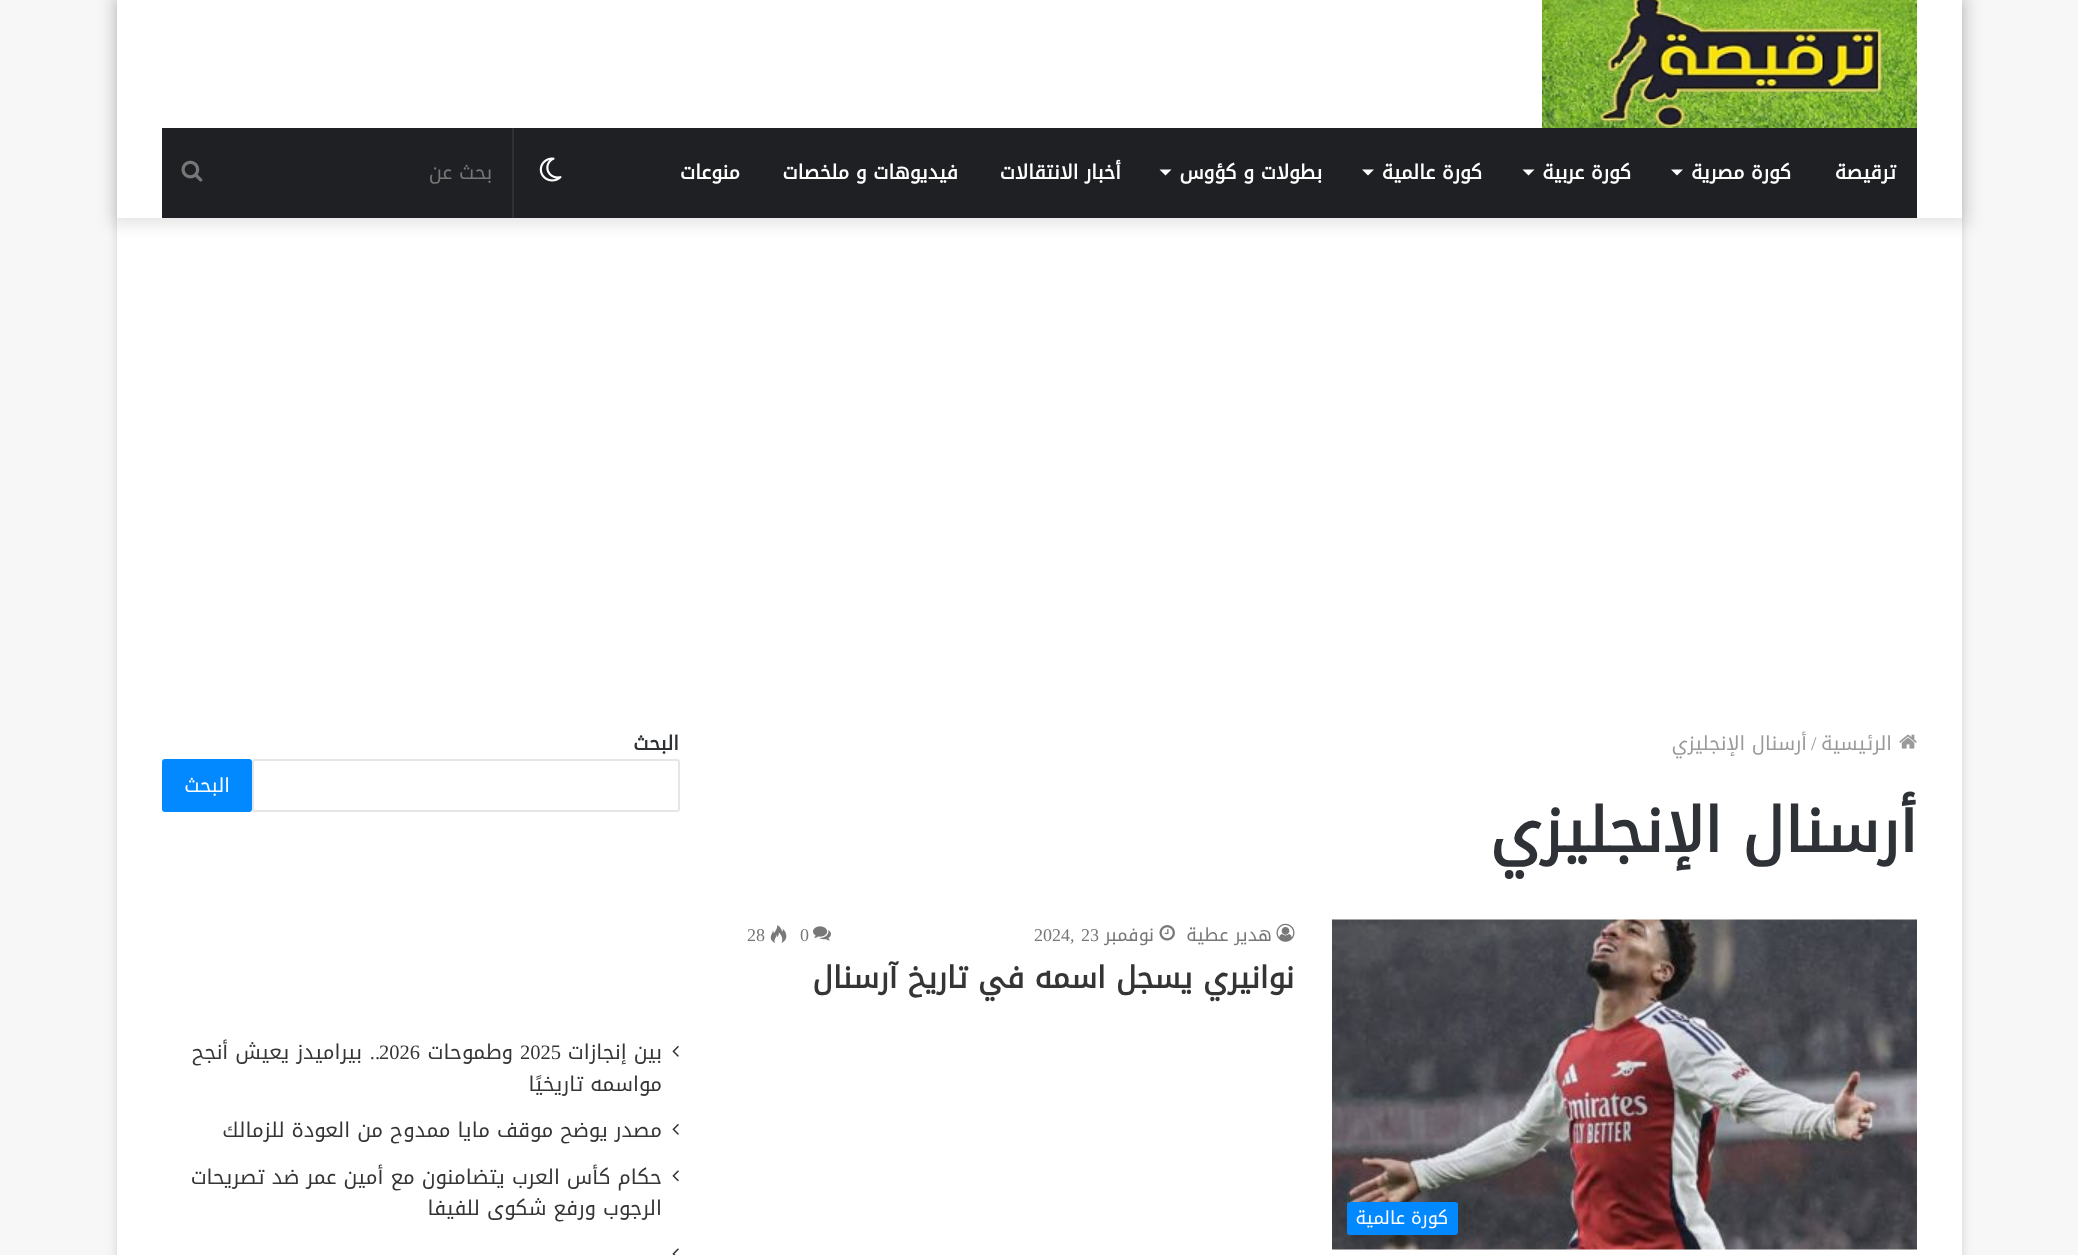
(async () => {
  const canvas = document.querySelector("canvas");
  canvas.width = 2078;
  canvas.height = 1255;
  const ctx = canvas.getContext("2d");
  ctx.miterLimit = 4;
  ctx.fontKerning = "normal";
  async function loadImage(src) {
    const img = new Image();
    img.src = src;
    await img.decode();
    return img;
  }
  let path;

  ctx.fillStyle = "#f7f7f7";
  ctx.fillRect(0, 0, 2078, 1255);
  ctx.fillStyle = "rgba(171, 171, 171, 0.5)";
  ctx.filter = "blur(5px)";
  ctx.beginPath();
  ctx.rect(117, 2, 1845, 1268);
  ctx.fill();
  ctx.filter = "none";
  ctx.fillStyle = "#ffffff";
  ctx.fillRect(117, 218, 1845, 1037);
  ctx.fillStyle = "rgba(0, 0, 0, 0.1)";
  ctx.filter = "blur(7.5px)";
  ctx.beginPath();
  ctx.rect(110, -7, 1860, 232);
  ctx.fill();
  ctx.filter = "none";
  ctx.fillStyle = "#ffffff";
  ctx.fillRect(117, 0, 1845, 218);
  ctx.drawImage(await loadImage("img/1.png"), 1542, 0, 375, 128);
  ctx.fillStyle = "#1f2024";
  ctx.fillRect(162, 128, 1755, 90);
  ctx.fillStyle = "#ffffff";
  path = new Path2D("M1671 169.5H1683L1677 175.5Z");
  ctx.fill(path);
  path = new Path2D("M1522.5 169.5H1534.5L1528.5 175.5Z");
  ctx.fill(path);
  path = new Path2D("M1362 169.5H1374L1368 175.5Z");
  ctx.fill(path);
  path = new Path2D("M1159.5 169.5H1171.5L1165.5 175.5Z");
  ctx.fill(path);
  ctx.drawImage(await loadImage("img/2.png"), 539, 157, 23, 25);
  ctx.fillStyle = "#2f3033";
  ctx.fillRect(512, 128, 2, 90);
  ctx.drawImage(await loadImage("img/3.png"), 181, 160, 22, 22);
  ctx.drawImage(await loadImage("img/4.png"), 1899, 734, 18, 15);
  ctx.drawImage(await loadImage("img/5.png"), 1276, 923, 19, 19);
  ctx.drawImage(await loadImage("img/6.png"), 1159, 925, 16, 16);
  ctx.drawImage(await loadImage("img/7.png"), 813, 926, 18, 15);
  ctx.drawImage(await loadImage("img/8.png"), 770, 925, 17, 18);
  ctx.drawImage(await loadImage("img/9.png"), 1332, 919, 585, 331);
  ctx.fillStyle = "#0389ff";
  ctx.beginPath();
  ctx.roundRect(1347, 1202, 111, 33, 3);
  ctx.fill();
  ctx.beginPath();
  ctx.roundRect(253, 760, 426, 51, 2);
  ctx.strokeStyle = "#e6e6e6";
  ctx.lineWidth = 2;
  ctx.stroke();
  ctx.beginPath();
  ctx.roundRect(162, 759, 90, 53, 3);
  ctx.fill();
  ctx.drawImage(await loadImage("img/10.png"), 672, 1046, 7, 11);
  ctx.drawImage(await loadImage("img/10.png"), 672, 1124, 7, 11);
  ctx.drawImage(await loadImage("img/11.png"), 672, 1170, 7, 12);
  ctx.drawImage(await loadImage("img/12.png"), 672, 1248, 7, 7);
  ctx.direction = "rtl";
  ctx.font = "bold 19.5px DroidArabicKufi";
  ctx.fillStyle = "#ffffff";
  for (const [text, x, y] of [
    ["ترقيصة", 1896, 179],
    ["كورة مصرية", 1791, 179],
    ["كورة عربية", 1631, 179],
    ["كورة عالمية", 1482, 179],
    ["بطولات و كؤوس", 1322, 179],
    ["أخبار الانتقالات", 1121, 179],
    ["فيديوهات و ملخصات", 958, 179],
    ["منوعات", 740, 179],
  ]) {
    ctx.fillText(text, x, y);
  }
  ctx.font = "19.5px DroidArabicKufi";
  ctx.fillStyle = "#777777";
  ctx.fillText("بحث عن", 492, 179);
  ctx.fillStyle = "#9a9a9a";
  ctx.fillText("الرئيسية", 1892, 750);
  ctx.direction = "ltr";
  ctx.font = "19.5px Liberation Serif";
  ctx.fillText("/", 1811, 750);
  ctx.direction = "rtl";
  ctx.font = "19.5px DroidArabicKufi";
  ctx.fillText("أرسنال الإنجليزي", 1807, 750);
  ctx.font = "bold 61.5px DroidArabicKufi";
  ctx.fillStyle = "#2e3136";
  ctx.fillText("أرسنال الإنجليزي", 1917, 852);
  ctx.font = "18px DroidArabicKufi";
  ctx.fillStyle = "#777777";
  ctx.fillText("هدير عطية", 1272, 941);
  ctx.fillText("نوفمبر", 1154, 941);
  ctx.direction = "ltr";
  ctx.font = "18px Liberation Serif";
  for (const [text, x, y] of [
    ["23", 1081, 941],
    ["2024,", 1034, 941],
    ["0", 800, 941],
    ["28", 747, 941],
  ]) {
    ctx.fillText(text, x, y);
  }
  ctx.direction = "rtl";
  ctx.font = "bold 30px DroidArabicKufi";
  ctx.fillStyle = "#353535";
  ctx.fillText("نوانيري يسجل اسمه في تاريخ آرسنال", 1294, 988);
  ctx.font = "18px DroidArabicKufi";
  ctx.fillStyle = "#ffffff";
  ctx.fillText("كورة عالمية", 1448, 1224);
  ctx.font = "bold 19.5px DroidArabicKufi";
  ctx.fillStyle = "#2e3136";
  ctx.fillText("البحث", 679, 750);
  ctx.font = "19.5px DroidArabicKufi";
  ctx.fillStyle = "#ffffff";
  ctx.fillText("البحث", 230, 792);
  ctx.font = "20.5px DroidArabicKufi";
  ctx.fillStyle = "#353535";
  ctx.fillText("بين إنجازات", 662, 1059);
  ctx.direction = "ltr";
  ctx.font = "20.5px Liberation Serif";
  ctx.fillText("2025", 520, 1059);
  ctx.direction = "rtl";
  ctx.font = "20.5px DroidArabicKufi";
  ctx.fillText("وطموحات", 513, 1059);
  ctx.direction = "ltr";
  ctx.font = "20.5px Liberation Serif";
  ctx.fillText("2026", 379, 1059);
  ctx.direction = "rtl";
  ctx.font = "20.5px DroidArabicKufi";
  ctx.fillText("بيراميدز يعيش أنجح", 362, 1059);
  ctx.font = "20.5px Liberation Serif";
  ctx.fillText("..", 380, 1059);
  ctx.font = "20.5px DroidArabicKufi";
  for (const [text, x, y] of [
    ["مواسمه تاريخيًا", 662, 1091],
    ["مصدر يوضح موقف مايا ممدوح من العودة للزمالك", 662, 1137],
    ["حكام كأس العرب يتضامنون مع أمين عمر ضد تصريحات", 662, 1184],
    ["الرجوب ورفع شكوى للفيفا", 662, 1215],
  ]) {
    ctx.fillText(text, x, y);
  }
})();
